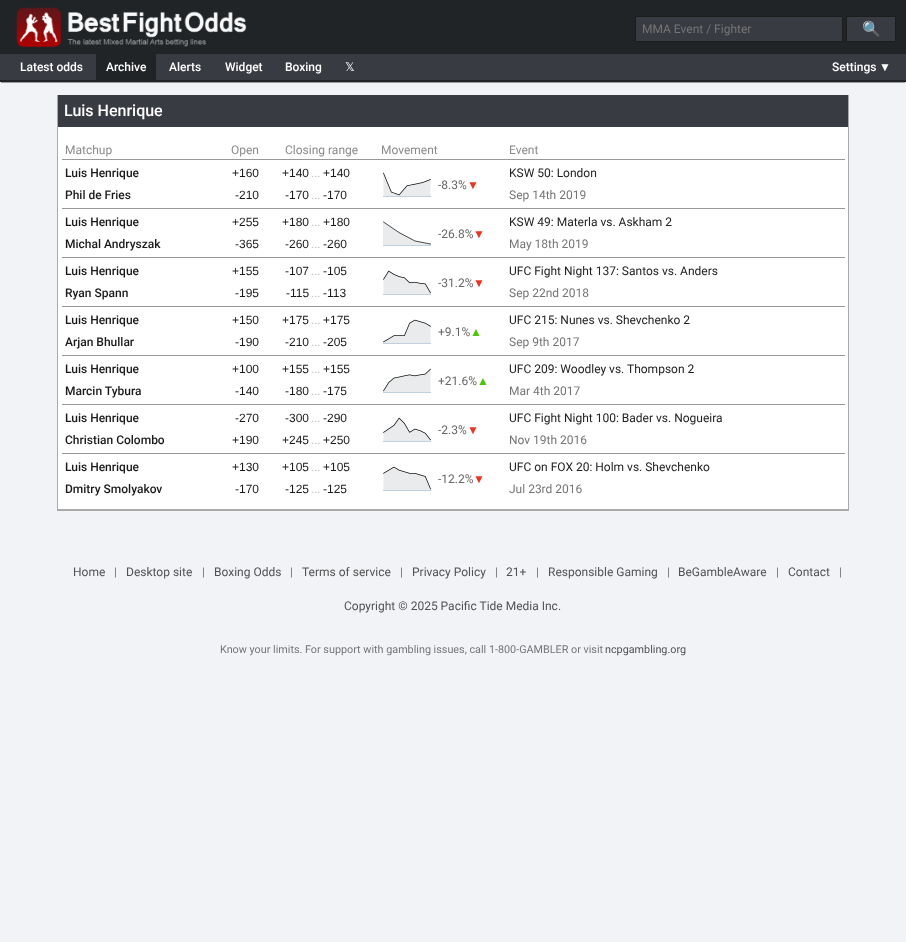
(async () => {
  const canvas = document.querySelector("canvas");
  canvas.width = 906;
  canvas.height = 942;
  const ctx = canvas.getContext("2d");
  ctx.miterLimit = 4;
  ctx.fontKerning = "normal";
  async function loadImage(src) {
    const img = new Image();
    img.src = src;
    await img.decode();
    return img;
  }
  let path;

  ctx.fillStyle = "#f1f3f7";
  ctx.fillRect(0, 0, 906, 942);
  ctx.fillStyle = "#212427";
  ctx.fillRect(0, 0, 906, 54);
  ctx.drawImage(await loadImage("img/1.png"), 16, 7, 231, 41);
  ctx.fillStyle = "#393b42";
  ctx.beginPath();
  ctx.rect(635.5, 16.5, 207, 25);
  ctx.fill();
  ctx.strokeStyle = "#1d1d1d";
  ctx.stroke();
  ctx.beginPath();
  ctx.rect(846.5, 16.5, 49, 25);
  ctx.fill();
  ctx.stroke();
  ctx.fillStyle = "#9b9b9b";
  ctx.filter = "blur(0.5px)";
  ctx.beginPath();
  ctx.rect(1, 57, 904, 26);
  ctx.fill();
  ctx.filter = "none";
  for (const [x, y, w, h, color] of [
    [0, 54, 906, 26, "#393b42"],
    [0, 80, 906, 2, "#212427"],
    [96, 54, 60, 26, "#212427"],
  ]) {
    ctx.fillStyle = color;
    ctx.fillRect(x, y, w, h);
  }
  ctx.fillStyle = "#aaaaaa";
  ctx.filter = "blur(0.5px)";
  ctx.beginPath();
  ctx.rect(57, 95, 792, 416);
  ctx.fill();
  ctx.filter = "none";
  for (const [x, y, w, h, color] of [
    [58, 127, 790, 382, "#ffffff"],
    [58, 95, 790, 32, "#393b42"],
    [62, 159, 783, 1, "#989898"],
  ]) {
    ctx.fillStyle = color;
    ctx.fillRect(x, y, w, h);
  }
  ctx.drawImage(await loadImage("img/2.png"), 383, 172, 48, 25);
  ctx.fillRect(62, 208, 783, 1);
  ctx.fillStyle = "#e9ebed";
  path = new Path2D("M383 222L399 232L415 241L431 244V245H383");
  ctx.fill(path);
  path = new Path2D("M383.5 222L399 232.5L415 241L430.5 244");
  ctx.strokeStyle = "#000000";
  ctx.lineWidth = 0.7;
  ctx.lineCap = "round";
  ctx.lineJoin = "round";
  ctx.stroke(path);
  ctx.fillStyle = "#c0d0e0";
  ctx.fillRect(383, 245, 48, 1);
  ctx.fillStyle = "#989898";
  ctx.fillRect(62, 257, 783, 1);
  ctx.drawImage(await loadImage("img/3.png"), 383, 270, 48, 25);
  ctx.fillRect(62, 306, 783, 1);
  ctx.drawImage(await loadImage("img/4.png"), 383, 319, 48, 25);
  ctx.fillRect(62, 355, 783, 1);
  ctx.drawImage(await loadImage("img/5.png"), 383, 368, 48, 25);
  ctx.fillRect(62, 404, 783, 1);
  ctx.drawImage(await loadImage("img/6.png"), 383, 417, 48, 25);
  ctx.fillRect(62, 453, 783, 1);
  ctx.drawImage(await loadImage("img/7.png"), 383, 466, 48, 25);
  ctx.font = "12px Roboto";
  ctx.fillStyle = "#757575";
  ctx.fillText("MMA Event / Fighter", 642, 33);
  ctx.font = "15px Noto Color Emoji";
  ctx.fillStyle = "#ffffff";
  ctx.fillText("🔍", 862, 34);
  ctx.font = "500 12px Roboto";
  for (const [text, x, y] of [
    ["Latest odds", 20, 71],
    ["Archive", 106, 71],
    ["Alerts", 169, 71],
    ["Widget", 225, 71],
    ["Boxing", 285, 71],
  ]) {
    ctx.fillText(text, x, y);
  }
  ctx.font = "12px DejaVu Sans";
  ctx.fillText("𝕏", 345, 71);
  ctx.font = "500 12px Roboto";
  ctx.fillText("Settings", 832, 71);
  ctx.font = "12px Liberation Sans";
  ctx.fillText("▼", 879, 71);
  ctx.font = "500 16px Roboto";
  ctx.fillText("Luis Henrique", 64, 116);
  ctx.font = "12px Roboto";
  ctx.fillStyle = "#8a8a8a";
  for (const [text, x, y] of [
    ["Matchup", 65, 154],
    ["Open", 231, 154],
    ["Closing range", 285, 154],
    ["Movement", 381, 154],
    ["Event", 509, 154],
  ]) {
    ctx.fillText(text, x, y);
  }
  ctx.font = "500 12px Roboto";
  ctx.fillStyle = "#1a1a1a";
  ctx.fillText("Luis Henrique", 65, 177);
  ctx.font = "12px Liberation Sans";
  ctx.fillText("+160", 232, 177);
  ctx.fillText("+140", 282, 177);
  ctx.font = "12px Roboto";
  ctx.fillStyle = "#c0c0c0";
  ctx.fillText("...", 311, 177);
  ctx.font = "12px Liberation Sans";
  ctx.fillStyle = "#1a1a1a";
  ctx.fillText("+140", 323, 177);
  ctx.font = "12px Roboto";
  ctx.fillStyle = "#222222";
  ctx.fillText("KSW 50: London", 509, 177);
  ctx.fillStyle = "#666666";
  ctx.fillText("-8.3%", 438, 189);
  ctx.font = "12px Liberation Sans";
  ctx.fillStyle = "#e93524";
  ctx.fillText("▼", 467, 189);
  ctx.font = "500 12px Roboto";
  ctx.fillStyle = "#1a1a1a";
  ctx.fillText("Phil de Fries", 65, 199);
  ctx.font = "12px Liberation Sans";
  ctx.fillText("-210", 235, 199);
  ctx.fillText("-170", 285, 199);
  ctx.font = "12px Roboto";
  ctx.fillStyle = "#c0c0c0";
  ctx.fillText("...", 311, 199);
  ctx.font = "12px Liberation Sans";
  ctx.fillStyle = "#1a1a1a";
  ctx.fillText("-170", 323, 199);
  ctx.font = "12px Roboto";
  ctx.fillStyle = "#757575";
  ctx.fillText("Sep 14th 2019", 509, 199);
  ctx.font = "500 12px Roboto";
  ctx.fillStyle = "#1a1a1a";
  ctx.fillText("Luis Henrique", 65, 226);
  ctx.font = "12px Liberation Sans";
  ctx.fillText("+255", 232, 226);
  ctx.fillText("+180", 282, 226);
  ctx.font = "12px Roboto";
  ctx.fillStyle = "#c0c0c0";
  ctx.fillText("...", 311, 226);
  ctx.font = "12px Liberation Sans";
  ctx.fillStyle = "#1a1a1a";
  ctx.fillText("+180", 323, 226);
  ctx.font = "12px Roboto";
  ctx.fillStyle = "#222222";
  ctx.fillText("KSW 49: Materla vs. Askham 2", 509, 226);
  ctx.fillStyle = "#666666";
  ctx.fillText("-26.8%", 438, 238);
  ctx.font = "12px Liberation Sans";
  ctx.fillStyle = "#e93524";
  ctx.fillText("▼", 473, 238);
  ctx.font = "500 12px Roboto";
  ctx.fillStyle = "#1a1a1a";
  ctx.fillText("Michal Andryszak", 65, 248);
  ctx.font = "12px Liberation Sans";
  ctx.fillText("-365", 235, 248);
  ctx.fillText("-260", 285, 248);
  ctx.font = "12px Roboto";
  ctx.fillStyle = "#c0c0c0";
  ctx.fillText("...", 311, 248);
  ctx.font = "12px Liberation Sans";
  ctx.fillStyle = "#1a1a1a";
  ctx.fillText("-260", 323, 248);
  ctx.font = "12px Roboto";
  ctx.fillStyle = "#757575";
  ctx.fillText("May 18th 2019", 509, 248);
  ctx.font = "500 12px Roboto";
  ctx.fillStyle = "#1a1a1a";
  ctx.fillText("Luis Henrique", 65, 275);
  ctx.font = "12px Liberation Sans";
  ctx.fillText("+155", 232, 275);
  ctx.fillText("-107", 285, 275);
  ctx.font = "12px Roboto";
  ctx.fillStyle = "#c0c0c0";
  ctx.fillText("...", 311, 275);
  ctx.font = "12px Liberation Sans";
  ctx.fillStyle = "#1a1a1a";
  ctx.fillText("-105", 323, 275);
  ctx.font = "12px Roboto";
  ctx.fillStyle = "#222222";
  ctx.fillText("UFC Fight Night 137: Santos vs. Anders", 509, 275);
  ctx.fillStyle = "#666666";
  ctx.fillText("-31.2%", 438, 287);
  ctx.font = "12px Liberation Sans";
  ctx.fillStyle = "#e93524";
  ctx.fillText("▼", 473, 287);
  ctx.font = "500 12px Roboto";
  ctx.fillStyle = "#1a1a1a";
  ctx.fillText("Ryan Spann", 65, 297);
  ctx.font = "12px Liberation Sans";
  ctx.fillText("-195", 235, 297);
  ctx.fillText("-115", 286, 297);
  ctx.font = "12px Roboto";
  ctx.fillStyle = "#c0c0c0";
  ctx.fillText("...", 311, 297);
  ctx.font = "12px Liberation Sans";
  ctx.fillStyle = "#1a1a1a";
  ctx.fillText("-113", 323, 297);
  ctx.font = "12px Roboto";
  ctx.fillStyle = "#757575";
  ctx.fillText("Sep 22nd 2018", 509, 297);
  ctx.font = "500 12px Roboto";
  ctx.fillStyle = "#1a1a1a";
  ctx.fillText("Luis Henrique", 65, 324);
  ctx.font = "12px Liberation Sans";
  ctx.fillText("+150", 232, 324);
  ctx.fillText("+175", 282, 324);
  ctx.font = "12px Roboto";
  ctx.fillStyle = "#c0c0c0";
  ctx.fillText("...", 311, 324);
  ctx.font = "12px Liberation Sans";
  ctx.fillStyle = "#1a1a1a";
  ctx.fillText("+175", 323, 324);
  ctx.font = "12px Roboto";
  ctx.fillStyle = "#222222";
  ctx.fillText("UFC 215: Nunes vs. Shevchenko 2", 509, 324);
  ctx.fillStyle = "#666666";
  ctx.fillText("+9.1%", 438, 336);
  ctx.font = "12px Liberation Sans";
  ctx.fillStyle = "#4bca02";
  ctx.fillText("▲", 470, 336);
  ctx.font = "500 12px Roboto";
  ctx.fillStyle = "#1a1a1a";
  ctx.fillText("Arjan Bhullar", 65, 346);
  ctx.font = "12px Liberation Sans";
  ctx.fillText("-190", 235, 346);
  ctx.fillText("-210", 285, 346);
  ctx.font = "12px Roboto";
  ctx.fillStyle = "#c0c0c0";
  ctx.fillText("...", 311, 346);
  ctx.font = "12px Liberation Sans";
  ctx.fillStyle = "#1a1a1a";
  ctx.fillText("-205", 323, 346);
  ctx.font = "12px Roboto";
  ctx.fillStyle = "#757575";
  ctx.fillText("Sep 9th 2017", 509, 346);
  ctx.font = "500 12px Roboto";
  ctx.fillStyle = "#1a1a1a";
  ctx.fillText("Luis Henrique", 65, 373);
  ctx.font = "12px Liberation Sans";
  ctx.fillText("+100", 232, 373);
  ctx.fillText("+155", 282, 373);
  ctx.font = "12px Roboto";
  ctx.fillStyle = "#c0c0c0";
  ctx.fillText("...", 311, 373);
  ctx.font = "12px Liberation Sans";
  ctx.fillStyle = "#1a1a1a";
  ctx.fillText("+155", 323, 373);
  ctx.font = "12px Roboto";
  ctx.fillStyle = "#222222";
  ctx.fillText("UFC 209: Woodley vs. Thompson 2", 509, 373);
  ctx.fillStyle = "#666666";
  ctx.fillText("+21.6%", 438, 385);
  ctx.font = "12px Liberation Sans";
  ctx.fillStyle = "#4bca02";
  ctx.fillText("▲", 477, 385);
  ctx.font = "500 12px Roboto";
  ctx.fillStyle = "#1a1a1a";
  ctx.fillText("Marcin Tybura", 65, 395);
  ctx.font = "12px Liberation Sans";
  ctx.fillText("-140", 235, 395);
  ctx.fillText("-180", 285, 395);
  ctx.font = "12px Roboto";
  ctx.fillStyle = "#c0c0c0";
  ctx.fillText("...", 311, 395);
  ctx.font = "12px Liberation Sans";
  ctx.fillStyle = "#1a1a1a";
  ctx.fillText("-175", 323, 395);
  ctx.font = "12px Roboto";
  ctx.fillStyle = "#757575";
  ctx.fillText("Mar 4th 2017", 509, 395);
  ctx.font = "500 12px Roboto";
  ctx.fillStyle = "#1a1a1a";
  ctx.fillText("Luis Henrique", 65, 422);
  ctx.font = "12px Liberation Sans";
  ctx.fillText("-270", 235, 422);
  ctx.fillText("-300", 285, 422);
  ctx.font = "12px Roboto";
  ctx.fillStyle = "#c0c0c0";
  ctx.fillText("...", 311, 422);
  ctx.font = "12px Liberation Sans";
  ctx.fillStyle = "#1a1a1a";
  ctx.fillText("-290", 323, 422);
  ctx.font = "12px Roboto";
  ctx.fillStyle = "#222222";
  ctx.fillText("UFC Fight Night 100: Bader vs. Nogueira", 509, 422);
  ctx.fillStyle = "#666666";
  ctx.fillText("-2.3%", 438, 434);
  ctx.font = "12px Liberation Sans";
  ctx.fillStyle = "#e93524";
  ctx.fillText("▼", 467, 434);
  ctx.font = "500 12px Roboto";
  ctx.fillStyle = "#1a1a1a";
  ctx.fillText("Christian Colombo", 65, 444);
  ctx.font = "12px Liberation Sans";
  ctx.fillText("+190", 232, 444);
  ctx.fillText("+245", 282, 444);
  ctx.font = "12px Roboto";
  ctx.fillStyle = "#c0c0c0";
  ctx.fillText("...", 311, 444);
  ctx.font = "12px Liberation Sans";
  ctx.fillStyle = "#1a1a1a";
  ctx.fillText("+250", 323, 444);
  ctx.font = "12px Roboto";
  ctx.fillStyle = "#757575";
  ctx.fillText("Nov 19th 2016", 509, 444);
  ctx.font = "500 12px Roboto";
  ctx.fillStyle = "#1a1a1a";
  ctx.fillText("Luis Henrique", 65, 471);
  ctx.font = "12px Liberation Sans";
  ctx.fillText("+130", 232, 471);
  ctx.fillText("+105", 282, 471);
  ctx.font = "12px Roboto";
  ctx.fillStyle = "#c0c0c0";
  ctx.fillText("...", 311, 471);
  ctx.font = "12px Liberation Sans";
  ctx.fillStyle = "#1a1a1a";
  ctx.fillText("+105", 323, 471);
  ctx.font = "12px Roboto";
  ctx.fillStyle = "#222222";
  ctx.fillText("UFC on FOX 20: Holm vs. Shevchenko", 509, 471);
  ctx.fillStyle = "#666666";
  ctx.fillText("-12.2%", 438, 483);
  ctx.font = "12px Liberation Sans";
  ctx.fillStyle = "#e93524";
  ctx.fillText("▼", 473, 483);
  ctx.font = "500 12px Roboto";
  ctx.fillStyle = "#1a1a1a";
  ctx.fillText("Dmitry Smolyakov", 65, 493);
  ctx.font = "12px Liberation Sans";
  ctx.fillText("-170", 235, 493);
  ctx.fillText("-125", 285, 493);
  ctx.font = "12px Roboto";
  ctx.fillStyle = "#c0c0c0";
  ctx.fillText("...", 311, 493);
  ctx.font = "12px Liberation Sans";
  ctx.fillStyle = "#1a1a1a";
  ctx.fillText("-125", 323, 493);
  ctx.font = "12px Roboto";
  ctx.fillStyle = "#757575";
  ctx.fillText("Jul 23rd 2016", 509, 493);
  ctx.fillStyle = "#525252";
  ctx.fillText("Home", 73, 576);
  ctx.fillStyle = "#757575";
  ctx.fillText("|", 114, 576);
  ctx.fillStyle = "#525252";
  ctx.fillText("Desktop site", 126, 576);
  ctx.fillStyle = "#757575";
  ctx.fillText("|", 202, 576);
  ctx.fillStyle = "#525252";
  ctx.fillText("Boxing Odds", 214, 576);
  ctx.fillStyle = "#757575";
  ctx.fillText("|", 290, 576);
  ctx.fillStyle = "#525252";
  ctx.fillText("Terms of service", 302, 576);
  ctx.fillStyle = "#757575";
  ctx.fillText("|", 400, 576);
  ctx.fillStyle = "#525252";
  ctx.fillText("Privacy Policy", 412, 576);
  ctx.fillStyle = "#757575";
  ctx.fillText("|", 495, 576);
  ctx.fillStyle = "#525252";
  ctx.fillText("21+", 506, 576);
  ctx.fillStyle = "#757575";
  ctx.fillText("|", 536, 576);
  ctx.fillStyle = "#525252";
  ctx.fillText("Responsible Gaming", 548, 576);
  ctx.fillStyle = "#757575";
  ctx.fillText("|", 667, 576);
  ctx.fillStyle = "#525252";
  ctx.fillText("BeGambleAware", 678, 576);
  ctx.fillStyle = "#757575";
  ctx.fillText("|", 776, 576);
  ctx.fillStyle = "#525252";
  ctx.fillText("Contact", 788, 576);
  ctx.fillStyle = "#757575";
  ctx.fillText("|", 839, 576);
  ctx.fillStyle = "#525252";
  ctx.fillText("Copyright © 2025 Pacific Tide Media Inc.", 344, 610);
  ctx.font = "10.8px Roboto";
  ctx.fillStyle = "#757575";
  ctx.fillText("Know your limits. For support with gambling issues, call 1-800-GAMBLER or visit", 220, 653);
  ctx.fillStyle = "#525252";
  ctx.fillText("ncpgambling.org", 605, 653);
})();
